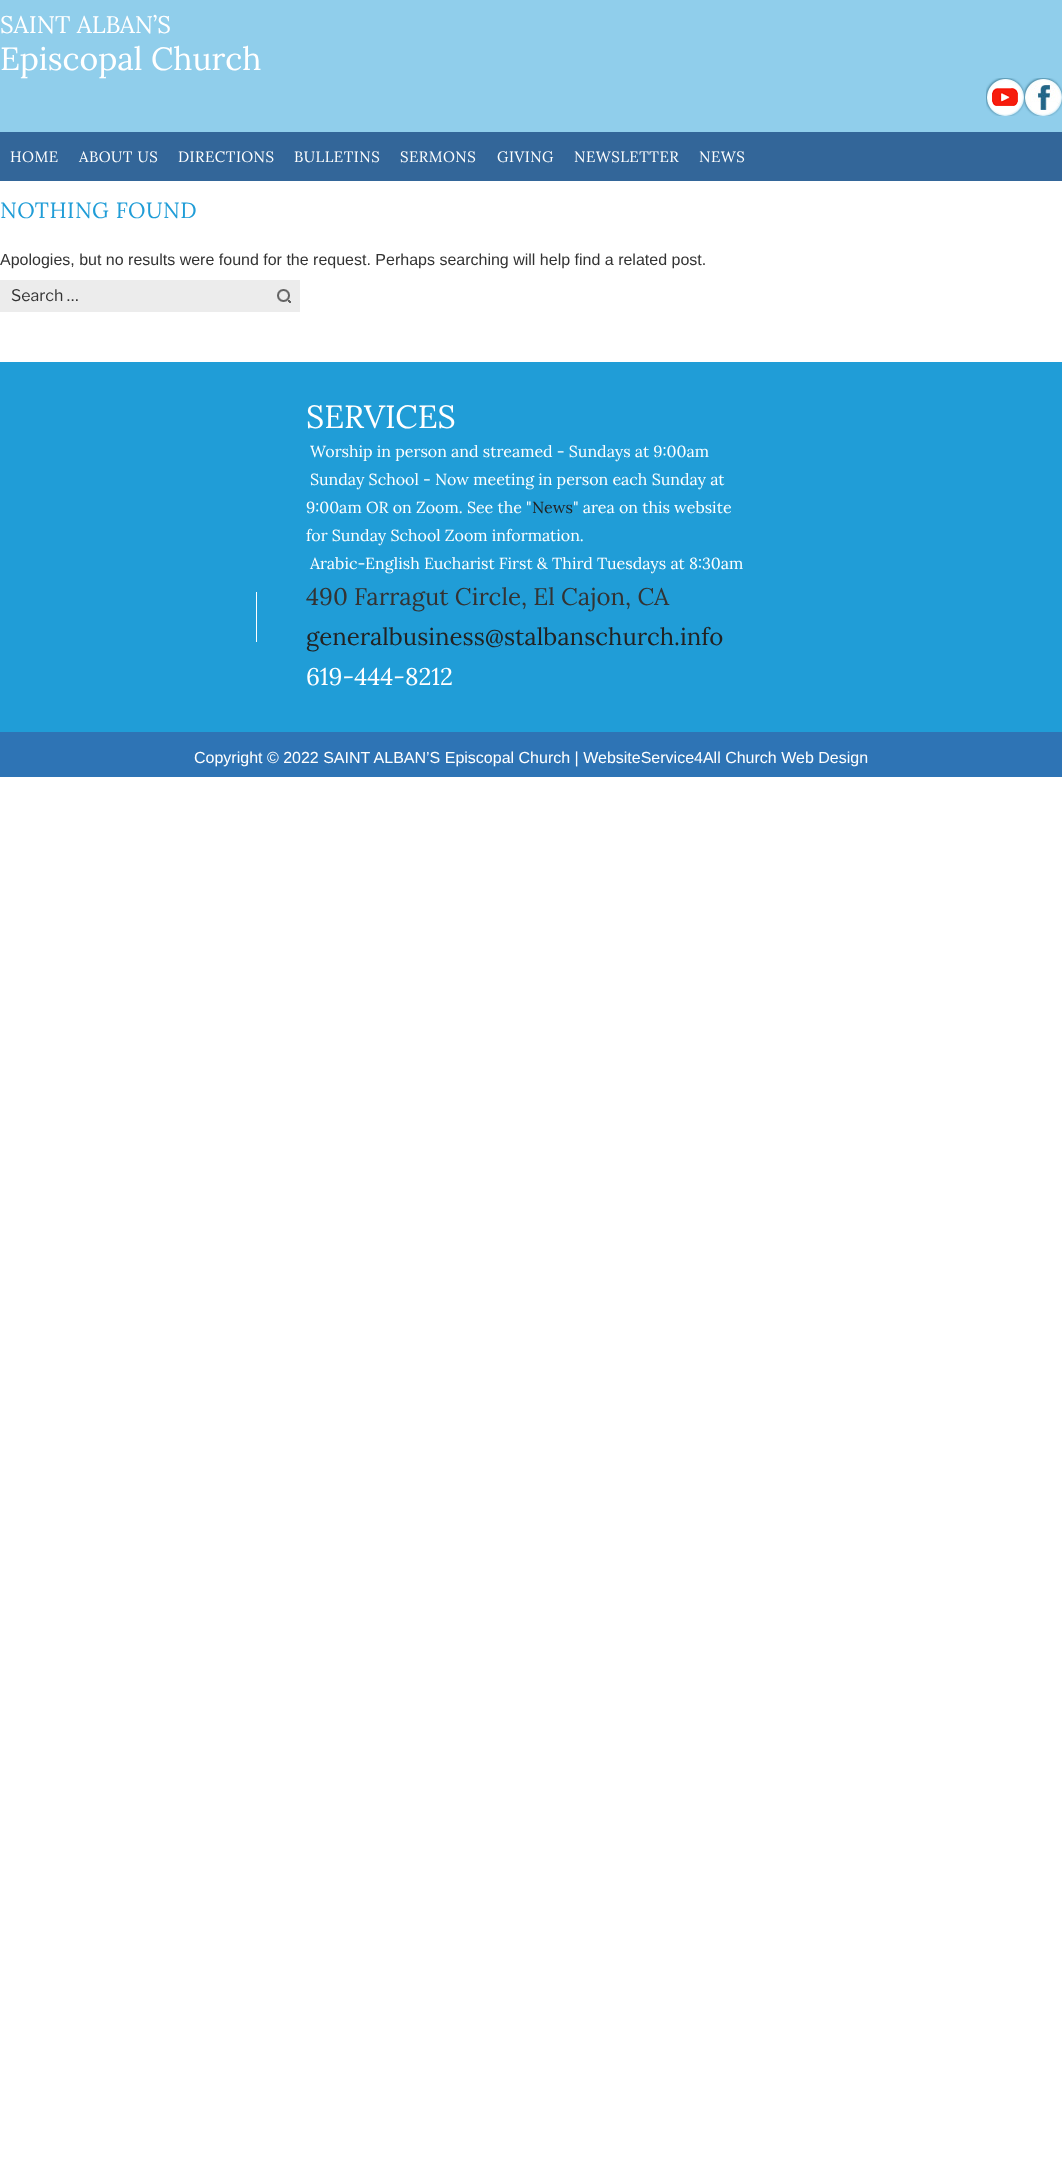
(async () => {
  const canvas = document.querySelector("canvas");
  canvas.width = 1062;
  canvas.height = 2159;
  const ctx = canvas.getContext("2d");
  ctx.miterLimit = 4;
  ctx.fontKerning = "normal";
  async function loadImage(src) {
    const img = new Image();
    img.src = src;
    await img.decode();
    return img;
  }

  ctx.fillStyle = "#ffffff";
  ctx.fillRect(0, 0, 1062, 2159);
  ctx.fillStyle = "#90ceeb";
  ctx.fillRect(0, 0, 1062, 132);
  ctx.drawImage(await loadImage("img/1.png"), 986, 78, 38, 38);
  ctx.drawImage(await loadImage("img/2.png"), 1024, 78, 38, 38);
  ctx.fillStyle = "#336699";
  ctx.fillRect(0, 132, 1062, 49);
  ctx.fillStyle = "#ececec";
  ctx.fillRect(0, 280, 300, 32);
  ctx.drawImage(await loadImage("img/3.png"), 277, 289, 14, 14);
  for (const [x, y, w, h, color] of [
    [0, 362, 1062, 370, "#209dd7"],
    [256, 592, 1, 50, "#ffffff"],
    [0, 732, 1062, 45, "#2e74b5"],
  ]) {
    ctx.fillStyle = color;
    ctx.fillRect(x, y, w, h);
  }
  ctx.font = "24px Lora";
  ctx.fillStyle = "#ffffff";
  ctx.fillText("SAINT ALBAN’S", 0, 33);
  ctx.font = "32px Lora";
  ctx.fillText("Episcopal Church", 0, 70);
  ctx.letterSpacing = "0.5px";
  ctx.font = "15px Lora";
  for (const [text, x, y] of [
    ["HOME", 10, 162],
    ["ABOUT US", 79, 162],
    ["DIRECTIONS", 178, 162],
    ["BULLETINS", 294, 162],
    ["SERMONS", 400, 162],
    ["GIVING", 497, 162],
    ["NEWSLETTER", 574, 162],
    ["NEWS", 699, 162],
  ]) {
    ctx.fillText(text, x, y);
  }
  ctx.font = "22px Lora";
  ctx.fillStyle = "#209dd7";
  ctx.fillText("NOTHING FOUND", 0, 218);
  ctx.letterSpacing = "0px";
  ctx.font = "16px Liberation Sans";
  ctx.fillStyle = "#333333";
  ctx.fillText("Apologies, but no results were found for the request. Perhaps searching will help find a related post.", 0, 265);
  ctx.font = "16px Libre Franklin";
  ctx.fillText("Search …", 11, 301);
  ctx.font = "32px Lora";
  ctx.fillStyle = "#ffffff";
  ctx.fillText("SERVICES", 306, 428);
  ctx.font = "16px Lora";
  for (const [text, x, y] of [
    ["Worship in person and streamed - Sundays at 9:00am", 310, 457],
    ["Sunday School - Now meeting in person each Sunday at", 310, 485],
    ["9:00am OR on Zoom. See the \"", 306, 513],
  ]) {
    ctx.fillText(text, x, y);
  }
  ctx.fillStyle = "#222222";
  ctx.fillText("News", 532, 513);
  ctx.fillStyle = "#ffffff";
  for (const [text, x, y] of [
    ["\" area on this website", 573, 513],
    ["for Sunday School Zoom information.", 306, 541],
    ["Arabic-English Eucharist First & Third Tuesdays at 8:30am", 310, 569],
  ]) {
    ctx.fillText(text, x, y);
  }
  ctx.font = "24px Lora";
  ctx.fillStyle = "#333333";
  ctx.fillText("490 Farragut Circle, El Cajon, CA", 306, 605);
  ctx.fillStyle = "#222222";
  ctx.fillText("generalbusiness@stalbanschurch.info", 306, 645);
  ctx.fillStyle = "#ffffff";
  ctx.fillText("619-444-8212", 306, 685);
  ctx.font = "16px Liberation Sans";
  ctx.fillText("Copyright © 2022 SAINT ALBAN’S Episcopal Church | WebsiteService4All Church Web Design", 194, 763);
})();
